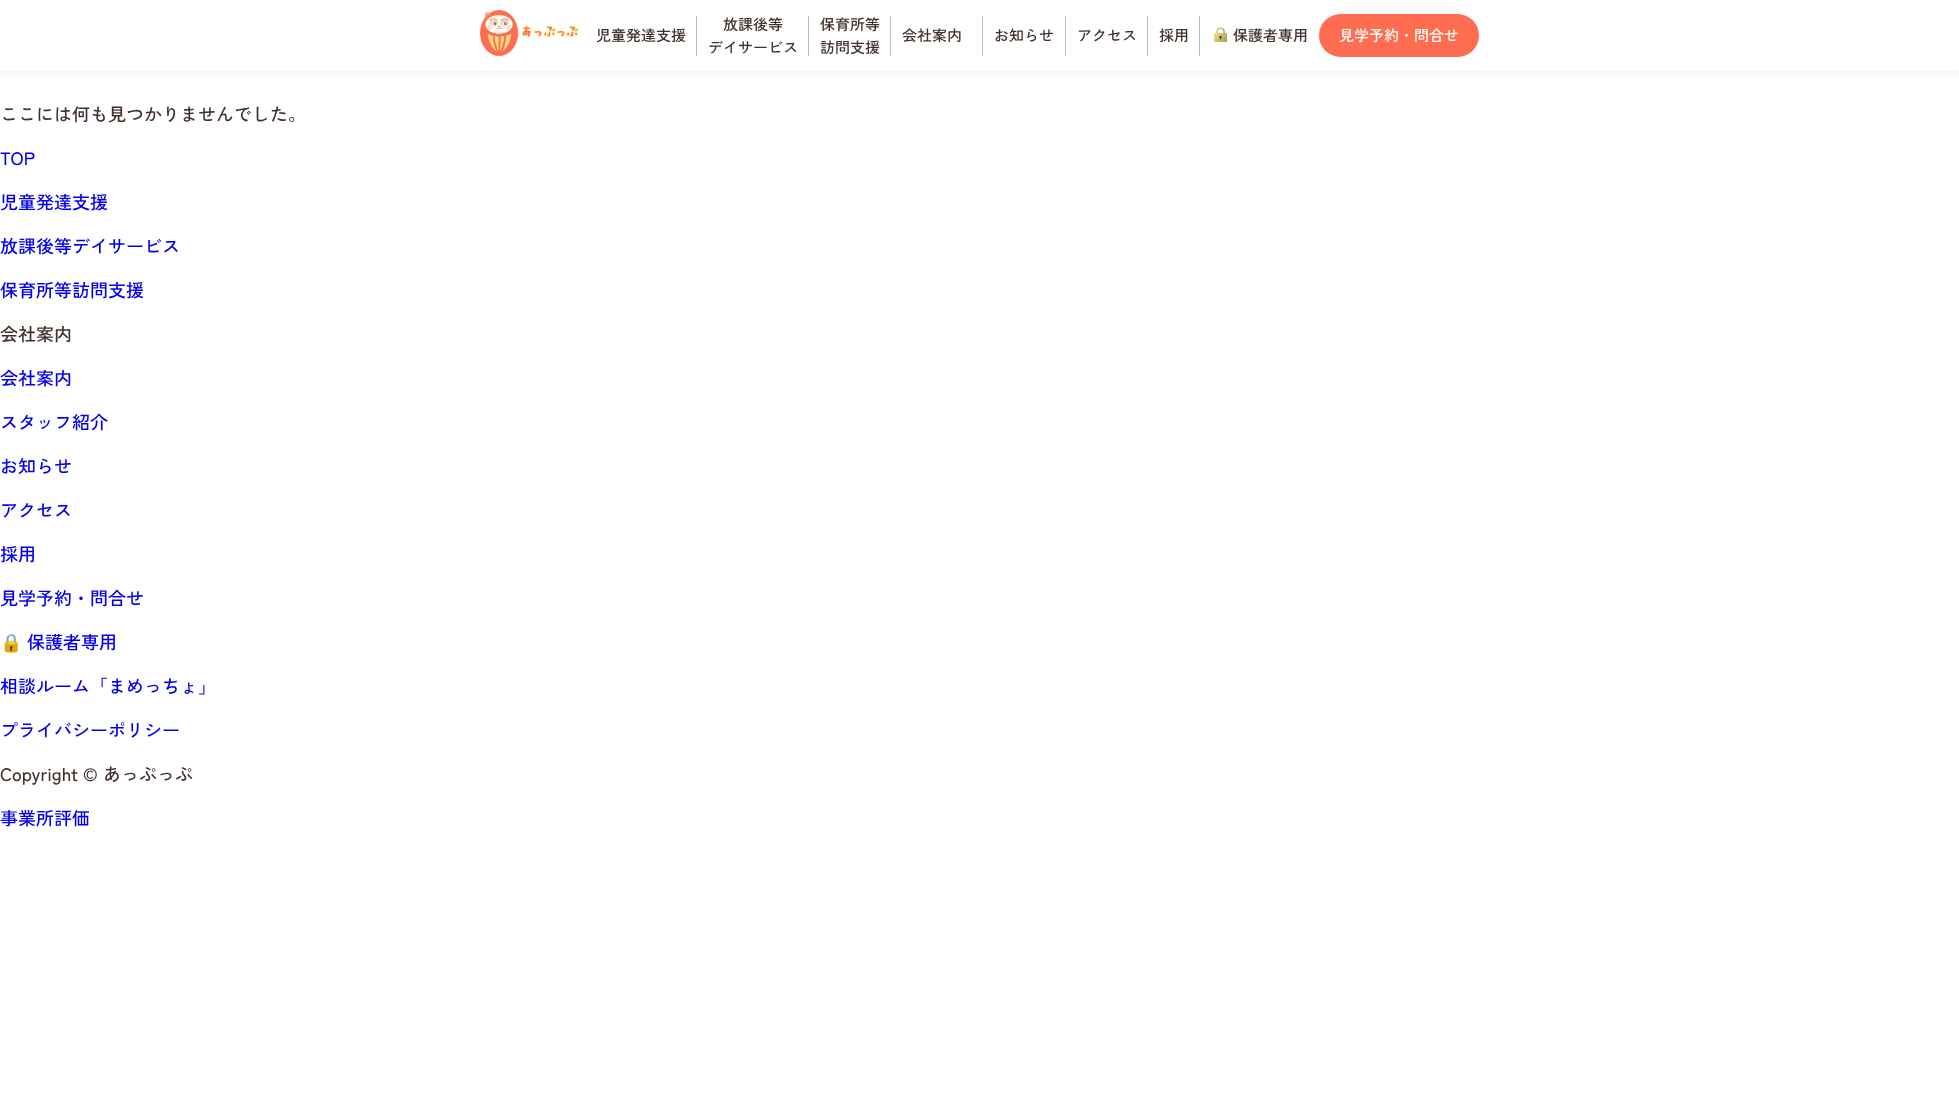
(async () => {
  const canvas = document.querySelector("canvas");
  canvas.width = 1959;
  canvas.height = 1120;
  const ctx = canvas.getContext("2d");
  ctx.miterLimit = 4;
  ctx.fontKerning = "normal";
  async function loadImage(src) {
    const img = new Image();
    img.src = src;
    await img.decode();
    return img;
  }

  ctx.fillStyle = "#ffffff";
  ctx.fillRect(0, 0, 1959, 1120);
  ctx.fillStyle = "rgba(0, 0, 0, 0.06)";
  ctx.filter = "blur(4px)";
  ctx.beginPath();
  ctx.rect(0, 2, 1959, 71);
  ctx.fill();
  ctx.filter = "none";
  ctx.fillStyle = "#ffffff";
  ctx.fillRect(0, 0, 1959, 71);
  ctx.drawImage(await loadImage("img/1.png"), 480, 10, 99, 47);
  for (const [x, y, w, h, color] of [
    [696, 16, 1, 40, "#bdb7b4"],
    [808, 16, 1, 40, "#bdb7b4"],
    [890, 16, 1, 40, "#bdb7b4"],
    [982, 16, 1, 40, "#bdb7b4"],
    [1065, 16, 1, 40, "#bdb7b4"],
    [1147, 16, 1, 40, "#bdb7b4"],
    [1199, 16, 1, 40, "#bdb7b4"],
  ]) {
    ctx.fillStyle = color;
    ctx.fillRect(x, y, w, h);
  }
  ctx.drawImage(await loadImage("img/2.png"), 1214, 27, 13, 15);
  ctx.fillStyle = "#ff6d50";
  ctx.beginPath();
  ctx.roundRect(1319, 14, 160, 43, 21.5);
  ctx.fill();
  ctx.font = "500 15px Zen Kaku Gothic New";
  ctx.fillStyle = "#42302a";
  for (const [text, x, y] of [
    ["児童発達支援", 596, 41],
    ["放課後等", 723, 30],
    ["デイサービス", 708, 53],
    ["保育所等", 820, 30],
    ["訪問支援", 820, 53],
    ["会社案内", 902, 41],
    ["お知らせ", 994, 41],
    ["アクセス", 1077, 41],
    ["採用", 1159, 41],
    ["保護者専用", 1233, 41],
  ]) {
    ctx.fillText(text, x, y);
  }
  ctx.fillStyle = "#ffffff";
  ctx.fillText("見学予約・問合せ", 1339, 41);
  ctx.font = "500 18px Zen Kaku Gothic New";
  ctx.fillStyle = "#42302a";
  ctx.fillText("ここには何も見つかりませんでした。", 0, 121);
  ctx.fillStyle = "#0000ee";
  for (const [text, x, y] of [
    ["TOP", 0, 165],
    ["児童発達支援", 0, 209],
    ["放課後等デイサービス", 0, 253],
    ["保育所等訪問支援", 0, 297],
  ]) {
    ctx.fillText(text, x, y);
  }
  ctx.fillStyle = "#42302a";
  ctx.fillText("会社案内", 0, 341);
  ctx.fillStyle = "#0000ee";
  for (const [text, x, y] of [
    ["会社案内", 0, 385],
    ["スタッフ紹介", 0, 429],
    ["お知らせ", 0, 473],
    ["アクセス", 0, 517],
    ["採用", 0, 561],
    ["見学予約・問合せ", 0, 605],
  ]) {
    ctx.fillText(text, x, y);
  }
  ctx.font = "18px Noto Color Emoji";
  ctx.fillText("🔒", 0, 649);
  ctx.font = "500 18px Zen Kaku Gothic New";
  for (const [text, x, y] of [
    ["保護者専用", 27, 649],
    ["相談ルーム「まめっちょ」", 0, 693],
    ["プライバシーポリシー", 0, 737],
  ]) {
    ctx.fillText(text, x, y);
  }
  ctx.fillStyle = "#42302a";
  ctx.fillText("Copyright © あっぷっぷ", 0, 781);
  ctx.fillStyle = "#0000ee";
  ctx.fillText("事業所評価", 0, 825);
})();
